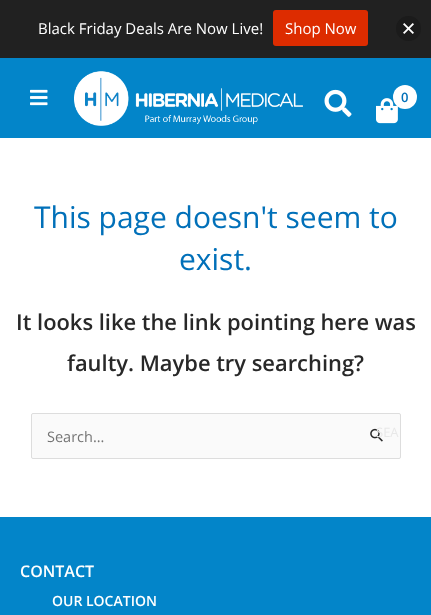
(async () => {
  const canvas = document.querySelector("canvas");
  canvas.width = 431;
  canvas.height = 615;
  const ctx = canvas.getContext("2d");
  ctx.miterLimit = 4;
  ctx.fontKerning = "normal";
  async function loadImage(src) {
    const img = new Image();
    img.src = src;
    await img.decode();
    return img;
  }

  ctx.fillStyle = "#ffffff";
  ctx.fillRect(0, 0, 431, 615);
  ctx.fillStyle = "#212121";
  ctx.fillRect(0, 0, 431, 58);
  ctx.fillStyle = "#dd2c00";
  ctx.beginPath();
  ctx.roundRect(273, 10, 95, 36, 3);
  ctx.fill();
  ctx.fillStyle = "#1b1b1b";
  ctx.beginPath();
  ctx.arc(408.5, 28.5, 12.5, 0, Math.PI * 2);
  ctx.fill();
  ctx.drawImage(await loadImage("img/1.png"), 403, 23, 11, 11);
  ctx.fillStyle = "#0385c9";
  ctx.fillRect(0, 58, 431, 80);
  ctx.drawImage(await loadImage("img/2.png"), 30, 89, 18, 17);
  ctx.drawImage(await loadImage("img/3.png"), 74, 71, 229, 55);
  ctx.drawImage(await loadImage("img/4.png"), 324, 89, 28, 28);
  ctx.drawImage(await loadImage("img/5.png"), 376, 98, 22, 26);
  ctx.fillStyle = "#ffffff";
  ctx.beginPath();
  ctx.arc(405, 97, 12, 0, Math.PI * 2);
  ctx.fill();
  ctx.fillStyle = "#fafafa";
  ctx.beginPath();
  ctx.roundRect(31.5, 413.5, 369, 45, 1.5);
  ctx.fill();
  ctx.strokeStyle = "#dddddd";
  ctx.stroke();
  ctx.drawImage(await loadImage("img/6.png"), 370, 428, 13, 14);
  ctx.fillStyle = "#0385c9";
  ctx.fillRect(0, 517, 431, 98);
  ctx.font = "15px Open Sans";
  ctx.fillStyle = "#ffffff";
  ctx.fillText("Black Friday Deals Are Now Live!", 38, 34);
  ctx.fillText("Shop Now", 285, 34);
  ctx.font = "600 13px Open Sans";
  ctx.fillStyle = "#0170b9";
  ctx.fillText("0", 401, 102);
  ctx.font = "30px Open Sans";
  ctx.fillText("This page doesn't seem to", 34, 228);
  ctx.fillText("exist.", 179, 270);
  ctx.font = "600 21.9px Open Sans";
  ctx.fillStyle = "#282828";
  ctx.fillText("It looks like the link pointing here was", 16, 330);
  ctx.fillText("faulty. Maybe try searching?", 67, 371);
  ctx.font = "13px Open Sans";
  ctx.fillStyle = "#e8e8e8";
  ctx.fillText("SEA", 376, 437);
  ctx.font = "14.5px Open Sans";
  ctx.fillStyle = "#757575";
  ctx.fillText("Search...", 47, 442);
  ctx.font = "600 16px Open Sans";
  ctx.fillStyle = "#ffffff";
  ctx.fillText("CONTACT", 20, 577);
  ctx.font = "600 14px Open Sans";
  ctx.fillText("OUR LOCATION", 52, 606);
})();
